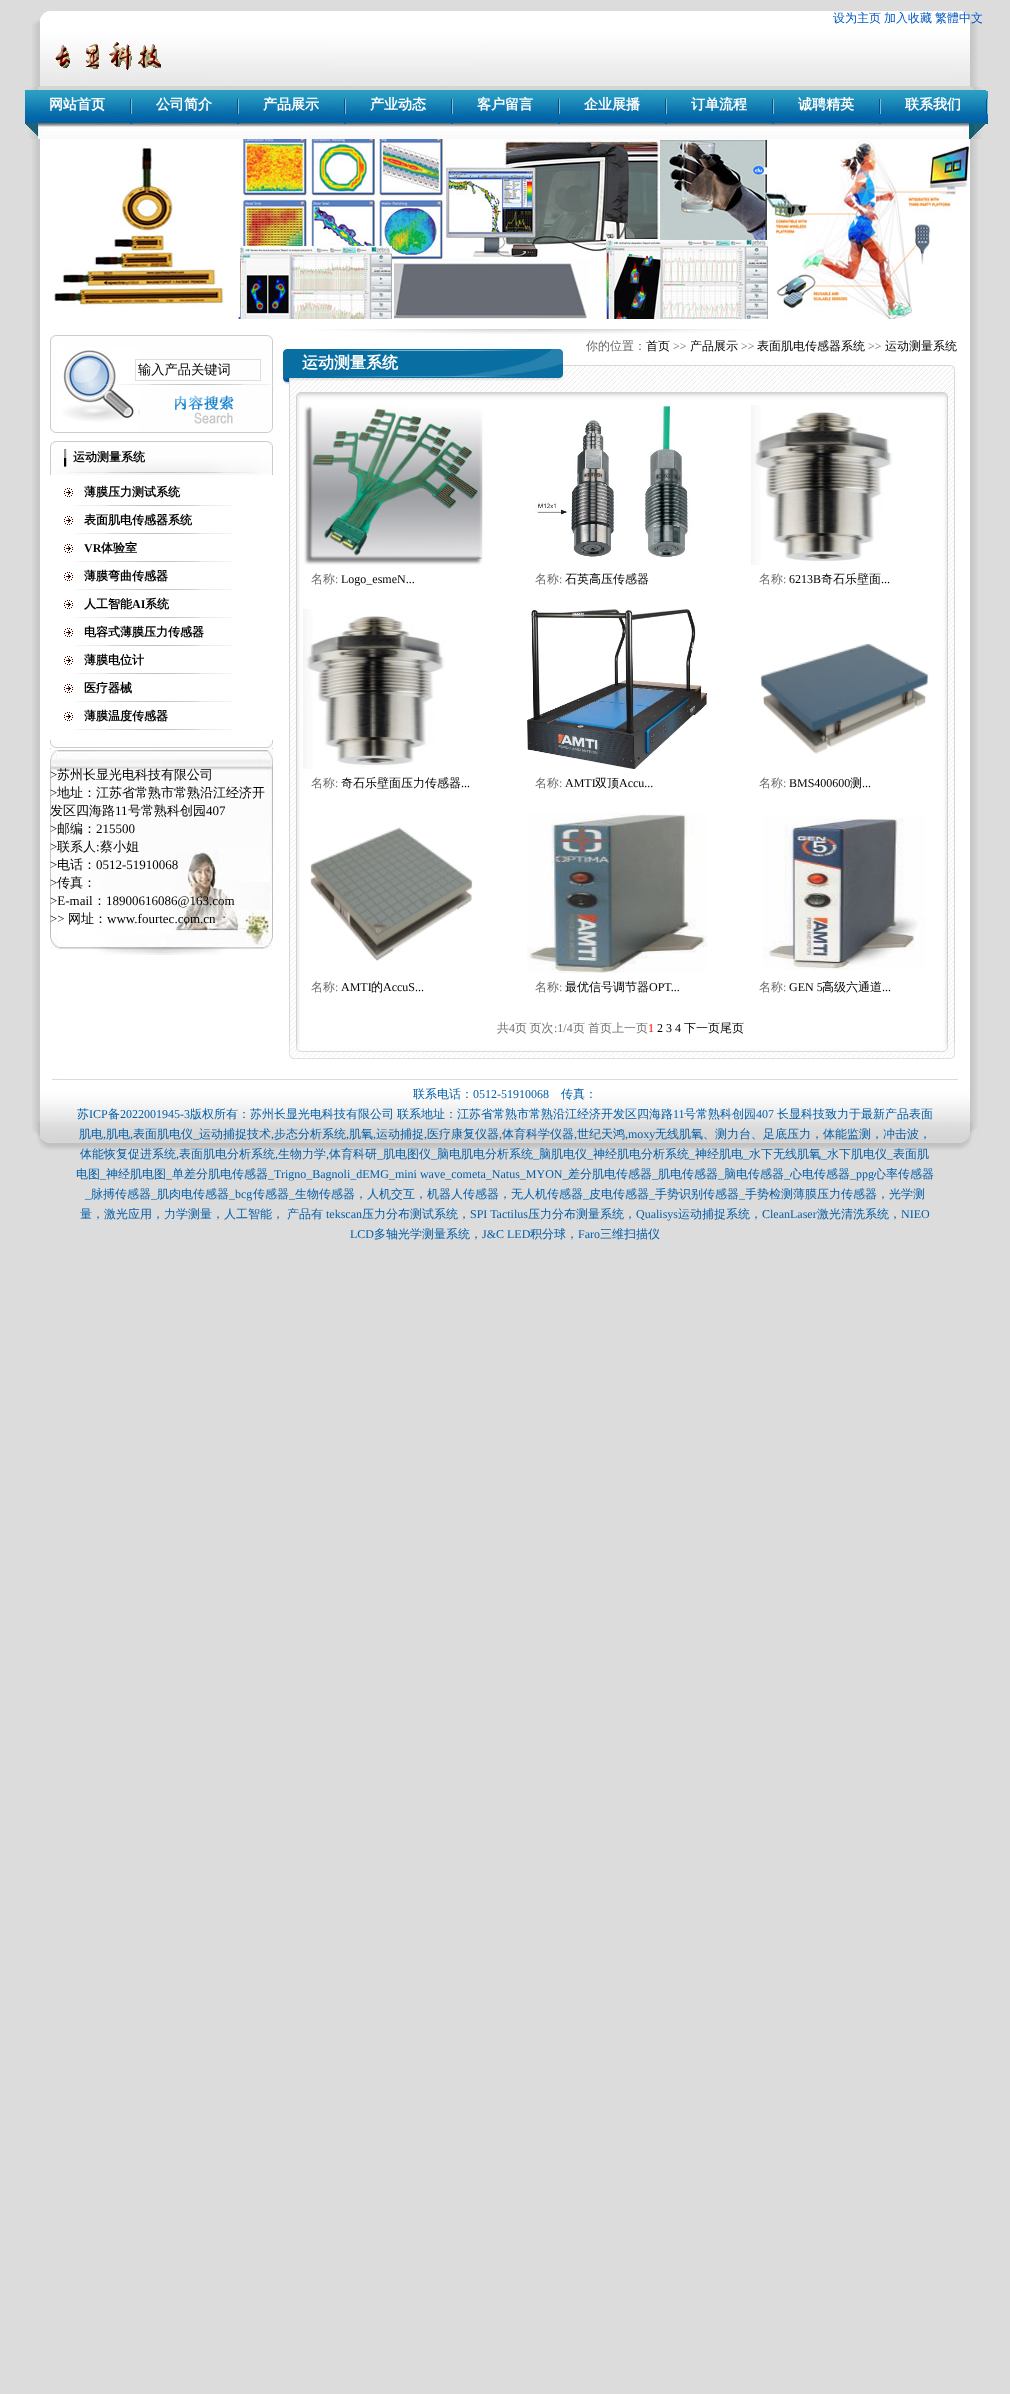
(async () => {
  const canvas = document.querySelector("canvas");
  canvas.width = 1010;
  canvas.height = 2394;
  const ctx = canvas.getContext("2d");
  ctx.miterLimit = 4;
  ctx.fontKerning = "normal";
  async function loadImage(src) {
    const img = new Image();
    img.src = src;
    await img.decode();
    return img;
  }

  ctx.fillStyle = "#dcdcdc";
  ctx.fillRect(0, 0, 1010, 2394);
  ctx.drawImage(await loadImage("img/1.png"), 32, 11, 946, 76);
  ctx.drawImage(await loadImage("img/2.png"), 55, 42, 106, 28);
  ctx.drawImage(await loadImage("img/3.png"), 25, 87, 961, 52);
  ctx.drawImage(await loadImage("img/4.png"), 130, 99, 2, 25);
  ctx.drawImage(await loadImage("img/4.png"), 237, 99, 2, 25);
  ctx.drawImage(await loadImage("img/4.png"), 344, 99, 2, 25);
  ctx.drawImage(await loadImage("img/4.png"), 451, 99, 2, 25);
  ctx.drawImage(await loadImage("img/4.png"), 558, 99, 2, 25);
  ctx.drawImage(await loadImage("img/4.png"), 665, 99, 2, 25);
  ctx.drawImage(await loadImage("img/4.png"), 772, 99, 2, 25);
  ctx.drawImage(await loadImage("img/4.png"), 879, 99, 2, 25);
  ctx.drawImage(await loadImage("img/5.png"), 986, 91, 2, 33);
  ctx.drawImage(await loadImage("img/6.png"), 32, 139, 946, 925);
  ctx.drawImage(await loadImage("img/7.png"), 54, 139, 916, 180);
  ctx.drawImage(await loadImage("img/8.png"), 50, 335, 223, 98);
  ctx.strokeStyle = "#dedede";
  ctx.strokeRect(135.5, 359.5, 125, 21);
  ctx.drawImage(await loadImage("img/9.png"), 167, 392, 72, 32);
  ctx.drawImage(await loadImage("img/10.png"), 50, 441, 223, 34);
  ctx.drawImage(await loadImage("img/11.png"), 64, 488, 9, 9);
  ctx.drawImage(await loadImage("img/12.png"), 76, 505, 156, 1);
  ctx.drawImage(await loadImage("img/11.png"), 64, 516, 9, 9);
  ctx.drawImage(await loadImage("img/12.png"), 76, 533, 156, 1);
  ctx.drawImage(await loadImage("img/11.png"), 64, 544, 9, 9);
  ctx.drawImage(await loadImage("img/12.png"), 76, 561, 156, 1);
  ctx.drawImage(await loadImage("img/11.png"), 64, 572, 9, 9);
  ctx.drawImage(await loadImage("img/12.png"), 76, 589, 156, 1);
  ctx.drawImage(await loadImage("img/11.png"), 64, 600, 9, 9);
  ctx.drawImage(await loadImage("img/12.png"), 76, 617, 156, 1);
  ctx.drawImage(await loadImage("img/11.png"), 64, 628, 9, 9);
  ctx.drawImage(await loadImage("img/12.png"), 76, 645, 156, 1);
  ctx.drawImage(await loadImage("img/11.png"), 64, 656, 9, 9);
  ctx.drawImage(await loadImage("img/12.png"), 76, 673, 156, 1);
  ctx.drawImage(await loadImage("img/11.png"), 64, 684, 9, 9);
  ctx.drawImage(await loadImage("img/12.png"), 76, 701, 156, 1);
  ctx.drawImage(await loadImage("img/11.png"), 64, 712, 9, 9);
  ctx.drawImage(await loadImage("img/12.png"), 76, 729, 156, 1);
  ctx.drawImage(await loadImage("img/13.png"), 50, 740, 223, 9);
  ctx.drawImage(await loadImage("img/14.png"), 50, 750, 223, 205);
  ctx.drawImage(await loadImage("img/15.png"), 281, 329, 677, 72);
  ctx.drawImage(await loadImage("img/16.png"), 289, 401, 666, 643);
  ctx.drawImage(await loadImage("img/17.png"), 304, 405, 179, 160);
  ctx.drawImage(await loadImage("img/18.png"), 535, 405, 156, 153);
  ctx.drawImage(await loadImage("img/19.png"), 751, 405, 142, 160);
  ctx.drawImage(await loadImage("img/20.png"), 303, 609, 142, 160);
  ctx.drawImage(await loadImage("img/21.png"), 527, 609, 180, 160);
  ctx.drawImage(await loadImage("img/22.png"), 760, 643, 169, 111);
  ctx.drawImage(await loadImage("img/23.png"), 310, 827, 163, 134);
  ctx.drawImage(await loadImage("img/24.png"), 527, 813, 180, 160);
  ctx.drawImage(await loadImage("img/25.png"), 762, 815, 163, 155);
  ctx.drawImage(await loadImage("img/26.png"), 289, 1044, 666, 16);
  ctx.drawImage(await loadImage("img/27.png"), 32, 1064, 946, 86);
  ctx.font = "500 12px WenQuanYi Zen Hei";
  ctx.fillStyle = "#0057c2";
  for (const [text, x, y] of [
    ["设为主页", 833, 22],
    ["加入收藏", 884, 22],
    ["繁體中文", 935, 22],
  ]) {
    ctx.fillText(text, x, y);
  }
  ctx.font = "bold 14px WenQuanYi Zen Hei";
  ctx.fillStyle = "#ffffff";
  for (const [text, x, y] of [
    ["网站首页", 49, 109],
    ["公司简介", 156, 109],
    ["产品展示", 263, 109],
    ["产业动态", 370, 109],
    ["客户留言", 477, 109],
    ["企业展播", 584, 109],
    ["订单流程", 691, 109],
    ["诚聘精英", 798, 109],
    ["联系我们", 905, 109],
  ]) {
    ctx.fillText(text, x, y);
  }
  ctx.font = "500 13.25px WenQuanYi Zen Hei";
  ctx.fillStyle = "#000000";
  ctx.fillText("输入产品关键词", 138, 374);
  ctx.font = "bold 12px WenQuanYi Zen Hei";
  for (const [text, x, y] of [
    ["运动测量系统", 73, 461],
    ["薄膜压力测试系统", 84, 496],
    ["表面肌电传感器系统", 84, 524],
  ]) {
    ctx.fillText(text, x, y);
  }
  ctx.font = "bold 12px Liberation Serif";
  ctx.fillText("VR", 84, 552);
  ctx.font = "bold 12px WenQuanYi Zen Hei";
  for (const [text, x, y] of [
    ["体验室", 101, 552],
    ["薄膜弯曲传感器", 84, 580],
    ["人工智能", 84, 608],
  ]) {
    ctx.fillText(text, x, y);
  }
  ctx.font = "bold 12px Liberation Serif";
  ctx.fillText("AI", 132, 608);
  ctx.font = "bold 12px WenQuanYi Zen Hei";
  for (const [text, x, y] of [
    ["系统", 145, 608],
    ["电容式薄膜压力传感器", 84, 636],
    ["薄膜电位计", 84, 664],
    ["医疗器械", 84, 692],
    ["薄膜温度传感器", 84, 720],
  ]) {
    ctx.fillText(text, x, y);
  }
  ctx.font = "13px Liberation Serif";
  ctx.fillText(">", 50, 779);
  ctx.font = "500 13px WenQuanYi Zen Hei";
  ctx.fillText("苏州长显光电科技有限公司", 57, 779);
  ctx.font = "13px Liberation Serif";
  ctx.fillText(">", 50, 797);
  ctx.font = "500 13px WenQuanYi Zen Hei";
  ctx.fillText("地址：江苏省常熟市常熟沿江经济开", 57, 797);
  ctx.fillText("发区四海路", 50, 815);
  ctx.font = "13px Liberation Serif";
  ctx.fillText("11", 115, 815);
  ctx.font = "500 13px WenQuanYi Zen Hei";
  ctx.fillText("号常熟科创园", 128, 815);
  ctx.font = "13px Liberation Serif";
  ctx.fillText("407", 206, 815);
  ctx.fillText(">", 50, 833);
  ctx.font = "500 13px WenQuanYi Zen Hei";
  ctx.fillText("邮编：", 57, 833);
  ctx.font = "13px Liberation Serif";
  ctx.fillText("215500", 96, 833);
  ctx.fillText(">", 50, 851);
  ctx.font = "500 13px WenQuanYi Zen Hei";
  ctx.fillText("联系人 蔡小姐", 57, 851);
  ctx.font = "13px Liberation Serif";
  ctx.fillText(":", 96, 851);
  ctx.fillText(">", 50, 869);
  ctx.font = "500 13px WenQuanYi Zen Hei";
  ctx.fillText("电话：", 57, 869);
  ctx.font = "13px Liberation Serif";
  ctx.fillText("0512-51910068", 96, 869);
  ctx.fillText(">", 50, 887);
  ctx.font = "500 13px WenQuanYi Zen Hei";
  ctx.fillText("传真：", 57, 887);
  ctx.font = "13px Liberation Serif";
  ctx.fillText(">E-mail", 50, 905);
  ctx.font = "500 13px WenQuanYi Zen Hei";
  ctx.fillText("：", 93, 905);
  ctx.font = "13px Liberation Serif";
  ctx.fillText("18900616086@163.com", 106, 905);
  ctx.fillText(">>", 50, 923);
  ctx.font = "500 13px WenQuanYi Zen Hei";
  ctx.fillText("网址：", 68, 923);
  ctx.font = "13px Liberation Serif";
  ctx.fillText("www.fourtec.com.cn", 107, 923);
  ctx.font = "500 12px WenQuanYi Zen Hei";
  ctx.fillStyle = "#666666";
  ctx.fillText("你的位置：", 586, 350);
  ctx.fillStyle = "#000000";
  ctx.fillText("首页", 646, 350);
  ctx.font = "12px Liberation Serif";
  ctx.fillStyle = "#666666";
  ctx.fillText(">>", 673, 350);
  ctx.font = "500 12px WenQuanYi Zen Hei";
  ctx.fillStyle = "#000000";
  ctx.fillText("产品展示", 690, 350);
  ctx.font = "12px Liberation Serif";
  ctx.fillStyle = "#666666";
  ctx.fillText(">>", 741, 350);
  ctx.font = "500 12px WenQuanYi Zen Hei";
  ctx.fillStyle = "#000000";
  ctx.fillText("表面肌电传感器系统", 757, 350);
  ctx.font = "12px Liberation Serif";
  ctx.fillStyle = "#666666";
  ctx.fillText(">>", 868, 350);
  ctx.font = "500 12px WenQuanYi Zen Hei";
  ctx.fillStyle = "#000000";
  ctx.fillText("运动测量系统", 885, 350);
  ctx.font = "bold 16px WenQuanYi Zen Hei";
  ctx.fillStyle = "#ffffff";
  ctx.fillText("运动测量系统", 302, 368);
  ctx.font = "500 12px WenQuanYi Zen Hei";
  ctx.fillStyle = "#6f6f6f";
  ctx.fillText("名称", 311, 583);
  ctx.font = "12px Liberation Serif";
  ctx.fillText(":", 335, 583);
  ctx.fillStyle = "#000000";
  ctx.fillText("Logo_esmeN...", 341, 583);
  ctx.font = "500 12px WenQuanYi Zen Hei";
  ctx.fillStyle = "#6f6f6f";
  ctx.fillText("名称", 535, 583);
  ctx.font = "12px Liberation Serif";
  ctx.fillText(":", 559, 583);
  ctx.font = "500 12px WenQuanYi Zen Hei";
  ctx.fillStyle = "#000000";
  ctx.fillText("石英高压传感器", 565, 583);
  ctx.fillStyle = "#6f6f6f";
  ctx.fillText("名称", 759, 583);
  ctx.font = "12px Liberation Serif";
  ctx.fillText(":", 783, 583);
  ctx.fillStyle = "#000000";
  ctx.fillText("6213B", 789, 583);
  ctx.font = "500 12px WenQuanYi Zen Hei";
  ctx.fillText("奇石乐壁面", 821, 583);
  ctx.font = "12px Liberation Serif";
  ctx.fillText("...", 881, 583);
  ctx.font = "500 12px WenQuanYi Zen Hei";
  ctx.fillStyle = "#6f6f6f";
  ctx.fillText("名称", 311, 787);
  ctx.font = "12px Liberation Serif";
  ctx.fillText(":", 335, 787);
  ctx.font = "500 12px WenQuanYi Zen Hei";
  ctx.fillStyle = "#000000";
  ctx.fillText("奇石乐壁面压力传感器", 341, 787);
  ctx.font = "12px Liberation Serif";
  ctx.fillText("...", 461, 787);
  ctx.font = "500 12px WenQuanYi Zen Hei";
  ctx.fillStyle = "#6f6f6f";
  ctx.fillText("名称", 535, 787);
  ctx.font = "12px Liberation Serif";
  ctx.fillText(":", 559, 787);
  ctx.fillStyle = "#000000";
  ctx.fillText("AMTI", 565, 787);
  ctx.font = "500 12px WenQuanYi Zen Hei";
  ctx.fillText("双顶", 595, 787);
  ctx.font = "12px Liberation Serif";
  ctx.fillText("Accu...", 619, 787);
  ctx.font = "500 12px WenQuanYi Zen Hei";
  ctx.fillStyle = "#6f6f6f";
  ctx.fillText("名称", 759, 787);
  ctx.font = "12px Liberation Serif";
  ctx.fillText(":", 783, 787);
  ctx.fillStyle = "#000000";
  ctx.fillText("BMS400600", 789, 787);
  ctx.font = "500 12px WenQuanYi Zen Hei";
  ctx.fillText("测", 850, 787);
  ctx.font = "12px Liberation Serif";
  ctx.fillText("...", 862, 787);
  ctx.font = "500 12px WenQuanYi Zen Hei";
  ctx.fillStyle = "#6f6f6f";
  ctx.fillText("名称", 311, 991);
  ctx.font = "12px Liberation Serif";
  ctx.fillText(":", 335, 991);
  ctx.fillStyle = "#000000";
  ctx.fillText("AMTI", 341, 991);
  ctx.font = "500 12px WenQuanYi Zen Hei";
  ctx.fillText("的", 371, 991);
  ctx.font = "12px Liberation Serif";
  ctx.fillText("AccuS...", 383, 991);
  ctx.font = "500 12px WenQuanYi Zen Hei";
  ctx.fillStyle = "#6f6f6f";
  ctx.fillText("名称", 535, 991);
  ctx.font = "12px Liberation Serif";
  ctx.fillText(":", 559, 991);
  ctx.font = "500 12px WenQuanYi Zen Hei";
  ctx.fillStyle = "#000000";
  ctx.fillText("最优信号调节器", 565, 991);
  ctx.font = "12px Liberation Serif";
  ctx.fillText("OPT...", 649, 991);
  ctx.font = "500 12px WenQuanYi Zen Hei";
  ctx.fillStyle = "#6f6f6f";
  ctx.fillText("名称", 759, 991);
  ctx.font = "12px Liberation Serif";
  ctx.fillText(":", 783, 991);
  ctx.fillStyle = "#000000";
  ctx.fillText("GEN 5", 789, 991);
  ctx.font = "500 12px WenQuanYi Zen Hei";
  ctx.fillText("高级六通道", 822, 991);
  ctx.font = "12px Liberation Serif";
  ctx.fillText("...", 882, 991);
  ctx.font = "500 12px WenQuanYi Zen Hei";
  ctx.fillStyle = "#6f6f6f";
  ctx.fillText("共", 497, 1032);
  ctx.font = "12px Liberation Serif";
  ctx.fillText("4", 509, 1032);
  ctx.wordSpacing = "-1px";
  ctx.font = "500 12px WenQuanYi Zen Hei";
  ctx.fillText("页 页次", 515, 1032);
  ctx.wordSpacing = "0px";
  ctx.font = "12px Liberation Serif";
  ctx.fillText(":1/4", 554, 1032);
  ctx.font = "500 12px WenQuanYi Zen Hei";
  ctx.fillText("页", 573, 1032);
  ctx.fillText("首页上一页", 588, 1032);
  ctx.font = "12px Liberation Serif";
  ctx.fillStyle = "#ff0000";
  ctx.fillText("1", 648, 1032);
  ctx.fillStyle = "#000000";
  ctx.fillText("2 3 4", 657, 1032);
  ctx.font = "500 12px WenQuanYi Zen Hei";
  ctx.fillText("下一页尾页", 684, 1032);
  ctx.fillStyle = "#035ea7";
  ctx.fillText("联系电话：", 413, 1098);
  ctx.font = "12px Liberation Serif";
  ctx.fillText("0512-51910068", 473, 1098);
  ctx.font = "500 12px WenQuanYi Zen Hei";
  ctx.fillText("传真：", 561, 1098);
  ctx.fillText("苏", 77, 1118);
  ctx.font = "12px Liberation Serif";
  ctx.fillText("ICP", 89, 1118);
  ctx.font = "500 12px WenQuanYi Zen Hei";
  ctx.fillText("备", 108, 1118);
  ctx.font = "12px Liberation Serif";
  ctx.fillText("2022001945-3", 120, 1118);
  ctx.font = "500 12px WenQuanYi Zen Hei";
  ctx.fillText("版权所有：苏州长显光电科技有限公司", 190, 1118);
  ctx.fillText("联系地址：江苏省常熟市常熟沿江经济开发区四海路", 397, 1118);
  ctx.font = "12px Liberation Serif";
  ctx.fillText("11", 673, 1118);
  ctx.font = "500 12px WenQuanYi Zen Hei";
  ctx.fillText("号常熟科创园", 684, 1118);
  ctx.font = "12px Liberation Serif";
  ctx.fillText("407", 756, 1118);
  ctx.font = "500 12px WenQuanYi Zen Hei";
  ctx.fillText("长显科技致力于最新产品表面", 777, 1118);
  ctx.fillText("肌电", 79, 1138);
  ctx.font = "12px Liberation Serif";
  ctx.fillText(",", 103, 1138);
  ctx.font = "500 12px WenQuanYi Zen Hei";
  ctx.fillText("肌电", 106, 1138);
  ctx.font = "12px Liberation Serif";
  ctx.fillText(",", 130, 1138);
  ctx.font = "500 12px WenQuanYi Zen Hei";
  ctx.fillText("表面肌电仪", 133, 1138);
  ctx.font = "12px Liberation Serif";
  ctx.fillText("_", 193, 1138);
  ctx.font = "500 12px WenQuanYi Zen Hei";
  ctx.fillText("运动捕捉技术", 199, 1138);
  ctx.font = "12px Liberation Serif";
  ctx.fillText(",", 271, 1138);
  ctx.font = "500 12px WenQuanYi Zen Hei";
  ctx.fillText("步态分析系统", 274, 1138);
  ctx.font = "12px Liberation Serif";
  ctx.fillText(",", 346, 1138);
  ctx.font = "500 12px WenQuanYi Zen Hei";
  ctx.fillText("肌氧", 349, 1138);
  ctx.font = "12px Liberation Serif";
  ctx.fillText(",", 373, 1138);
  ctx.font = "500 12px WenQuanYi Zen Hei";
  ctx.fillText("运动捕捉", 376, 1138);
  ctx.font = "12px Liberation Serif";
  ctx.fillText(",", 424, 1138);
  ctx.font = "500 12px WenQuanYi Zen Hei";
  ctx.fillText("医疗康复仪器", 427, 1138);
  ctx.font = "12px Liberation Serif";
  ctx.fillText(",", 499, 1138);
  ctx.font = "500 12px WenQuanYi Zen Hei";
  ctx.fillText("体育科学仪器", 502, 1138);
  ctx.font = "12px Liberation Serif";
  ctx.fillText(",", 574, 1138);
  ctx.font = "500 12px WenQuanYi Zen Hei";
  ctx.fillText("世纪天鸿", 577, 1138);
  ctx.font = "12px Liberation Serif";
  ctx.fillText(",moxy", 625, 1138);
  ctx.font = "500 12px WenQuanYi Zen Hei";
  ctx.fillText("无线肌氧、测力台、足底压力，体能监测，冲击波，", 655, 1138);
  ctx.fillText("体能恢复促进系统", 80, 1158);
  ctx.font = "12px Liberation Serif";
  ctx.fillText(",", 176, 1158);
  ctx.font = "500 12px WenQuanYi Zen Hei";
  ctx.fillText("表面肌电分析系统", 179, 1158);
  ctx.font = "12px Liberation Serif";
  ctx.fillText(",", 275, 1158);
  ctx.font = "500 12px WenQuanYi Zen Hei";
  ctx.fillText("生物力学", 278, 1158);
  ctx.font = "12px Liberation Serif";
  ctx.fillText(",", 326, 1158);
  ctx.font = "500 12px WenQuanYi Zen Hei";
  ctx.fillText("体育科研", 329, 1158);
  ctx.font = "12px Liberation Serif";
  ctx.fillText("_", 377, 1158);
  ctx.font = "500 12px WenQuanYi Zen Hei";
  ctx.fillText("肌电图仪", 383, 1158);
  ctx.font = "12px Liberation Serif";
  ctx.fillText("_", 431, 1158);
  ctx.font = "500 12px WenQuanYi Zen Hei";
  ctx.fillText("脑电肌电分析系统", 437, 1158);
  ctx.font = "12px Liberation Serif";
  ctx.fillText("_", 533, 1158);
  ctx.font = "500 12px WenQuanYi Zen Hei";
  ctx.fillText("脑肌电仪", 539, 1158);
  ctx.font = "12px Liberation Serif";
  ctx.fillText("_", 587, 1158);
  ctx.font = "500 12px WenQuanYi Zen Hei";
  ctx.fillText("神经肌电分析系统", 593, 1158);
  ctx.font = "12px Liberation Serif";
  ctx.fillText("_", 689, 1158);
  ctx.font = "500 12px WenQuanYi Zen Hei";
  ctx.fillText("神经肌电", 695, 1158);
  ctx.font = "12px Liberation Serif";
  ctx.fillText("_", 743, 1158);
  ctx.font = "500 12px WenQuanYi Zen Hei";
  ctx.fillText("水下无线肌氧", 749, 1158);
  ctx.font = "12px Liberation Serif";
  ctx.fillText("_", 821, 1158);
  ctx.font = "500 12px WenQuanYi Zen Hei";
  ctx.fillText("水下肌电仪", 827, 1158);
  ctx.font = "12px Liberation Serif";
  ctx.fillText("_", 887, 1158);
  ctx.font = "500 12px WenQuanYi Zen Hei";
  ctx.fillText("表面肌", 893, 1158);
  ctx.fillText("电图", 76, 1178);
  ctx.font = "12px Liberation Serif";
  ctx.fillText("_", 100, 1178);
  ctx.font = "500 12px WenQuanYi Zen Hei";
  ctx.fillText("神经肌电图", 106, 1178);
  ctx.font = "12px Liberation Serif";
  ctx.fillText("_", 166, 1178);
  ctx.font = "500 12px WenQuanYi Zen Hei";
  ctx.fillText("单差分肌电传感器", 172, 1178);
  ctx.font = "12px Liberation Serif";
  ctx.fillText("_Trigno_Bagnoli_dEMG_mini wave_cometa_Natus_MYON_", 268, 1178);
  ctx.font = "500 12px WenQuanYi Zen Hei";
  ctx.fillText("差分肌电传感器", 568, 1178);
  ctx.font = "12px Liberation Serif";
  ctx.fillText("_", 652, 1178);
  ctx.font = "500 12px WenQuanYi Zen Hei";
  ctx.fillText("肌电传感器", 658, 1178);
  ctx.font = "12px Liberation Serif";
  ctx.fillText("_", 718, 1178);
  ctx.font = "500 12px WenQuanYi Zen Hei";
  ctx.fillText("脑电传感器", 724, 1178);
  ctx.font = "12px Liberation Serif";
  ctx.fillText("_", 784, 1178);
  ctx.font = "500 12px WenQuanYi Zen Hei";
  ctx.fillText("心电传感器", 790, 1178);
  ctx.font = "12px Liberation Serif";
  ctx.fillText("_ppg", 850, 1178);
  ctx.font = "500 12px WenQuanYi Zen Hei";
  ctx.fillText("心率传感器", 874, 1178);
  ctx.font = "12px Liberation Serif";
  ctx.fillText("_", 85, 1198);
  ctx.font = "500 12px WenQuanYi Zen Hei";
  ctx.fillText("脉搏传感器", 91, 1198);
  ctx.font = "12px Liberation Serif";
  ctx.fillText("_", 151, 1198);
  ctx.font = "500 12px WenQuanYi Zen Hei";
  ctx.fillText("肌肉电传感器", 157, 1198);
  ctx.font = "12px Liberation Serif";
  ctx.fillText("_bcg", 229, 1198);
  ctx.font = "500 12px WenQuanYi Zen Hei";
  ctx.fillText("传感器", 253, 1198);
  ctx.font = "12px Liberation Serif";
  ctx.fillText("_", 289, 1198);
  ctx.font = "500 12px WenQuanYi Zen Hei";
  ctx.fillText("生物传感器，人机交互，机器人传感器，无人机传感器", 295, 1198);
  ctx.font = "12px Liberation Serif";
  ctx.fillText("_", 583, 1198);
  ctx.font = "500 12px WenQuanYi Zen Hei";
  ctx.fillText("皮电传感器", 589, 1198);
  ctx.font = "12px Liberation Serif";
  ctx.fillText("_", 649, 1198);
  ctx.font = "500 12px WenQuanYi Zen Hei";
  ctx.fillText("手势识别传感器", 655, 1198);
  ctx.font = "12px Liberation Serif";
  ctx.fillText("_", 739, 1198);
  ctx.font = "500 12px WenQuanYi Zen Hei";
  for (const [text, x, y] of [
    ["手势检测薄膜压力传感器，光学测", 745, 1198],
    ["量，激光应用，力学测量，人工智能，", 80, 1218],
    ["产品有", 287, 1218],
  ]) {
    ctx.fillText(text, x, y);
  }
  ctx.font = "12px Liberation Serif";
  ctx.fillText("tekscan", 326, 1218);
  ctx.font = "500 12px WenQuanYi Zen Hei";
  ctx.fillText("压力分布测试系统，", 362, 1218);
  ctx.font = "12px Liberation Serif";
  ctx.fillText("SPI Tactilus", 470, 1218);
  ctx.font = "500 12px WenQuanYi Zen Hei";
  ctx.fillText("压力分布测量系统，", 528, 1218);
  ctx.font = "12px Liberation Serif";
  ctx.fillText("Qualisys", 636, 1218);
  ctx.font = "500 12px WenQuanYi Zen Hei";
  ctx.fillText("运动捕捉系统，", 678, 1218);
  ctx.font = "12px Liberation Serif";
  ctx.fillText("CleanLaser", 762, 1218);
  ctx.font = "500 12px WenQuanYi Zen Hei";
  ctx.fillText("激光清洗系统，", 817, 1218);
  ctx.font = "12px Liberation Serif";
  ctx.fillText("NIEO", 901, 1218);
  ctx.fillText("LCD", 350, 1238);
  ctx.font = "500 12px WenQuanYi Zen Hei";
  ctx.fillText("多轴光学测量系统，", 374, 1238);
  ctx.font = "12px Liberation Serif";
  ctx.fillText("J&C LED", 482, 1238);
  ctx.font = "500 12px WenQuanYi Zen Hei";
  ctx.fillText("积分球，", 530, 1238);
  ctx.font = "12px Liberation Serif";
  ctx.fillText("Faro", 578, 1238);
  ctx.font = "500 12px WenQuanYi Zen Hei";
  ctx.fillText("三维扫描仪", 600, 1238);
})();
